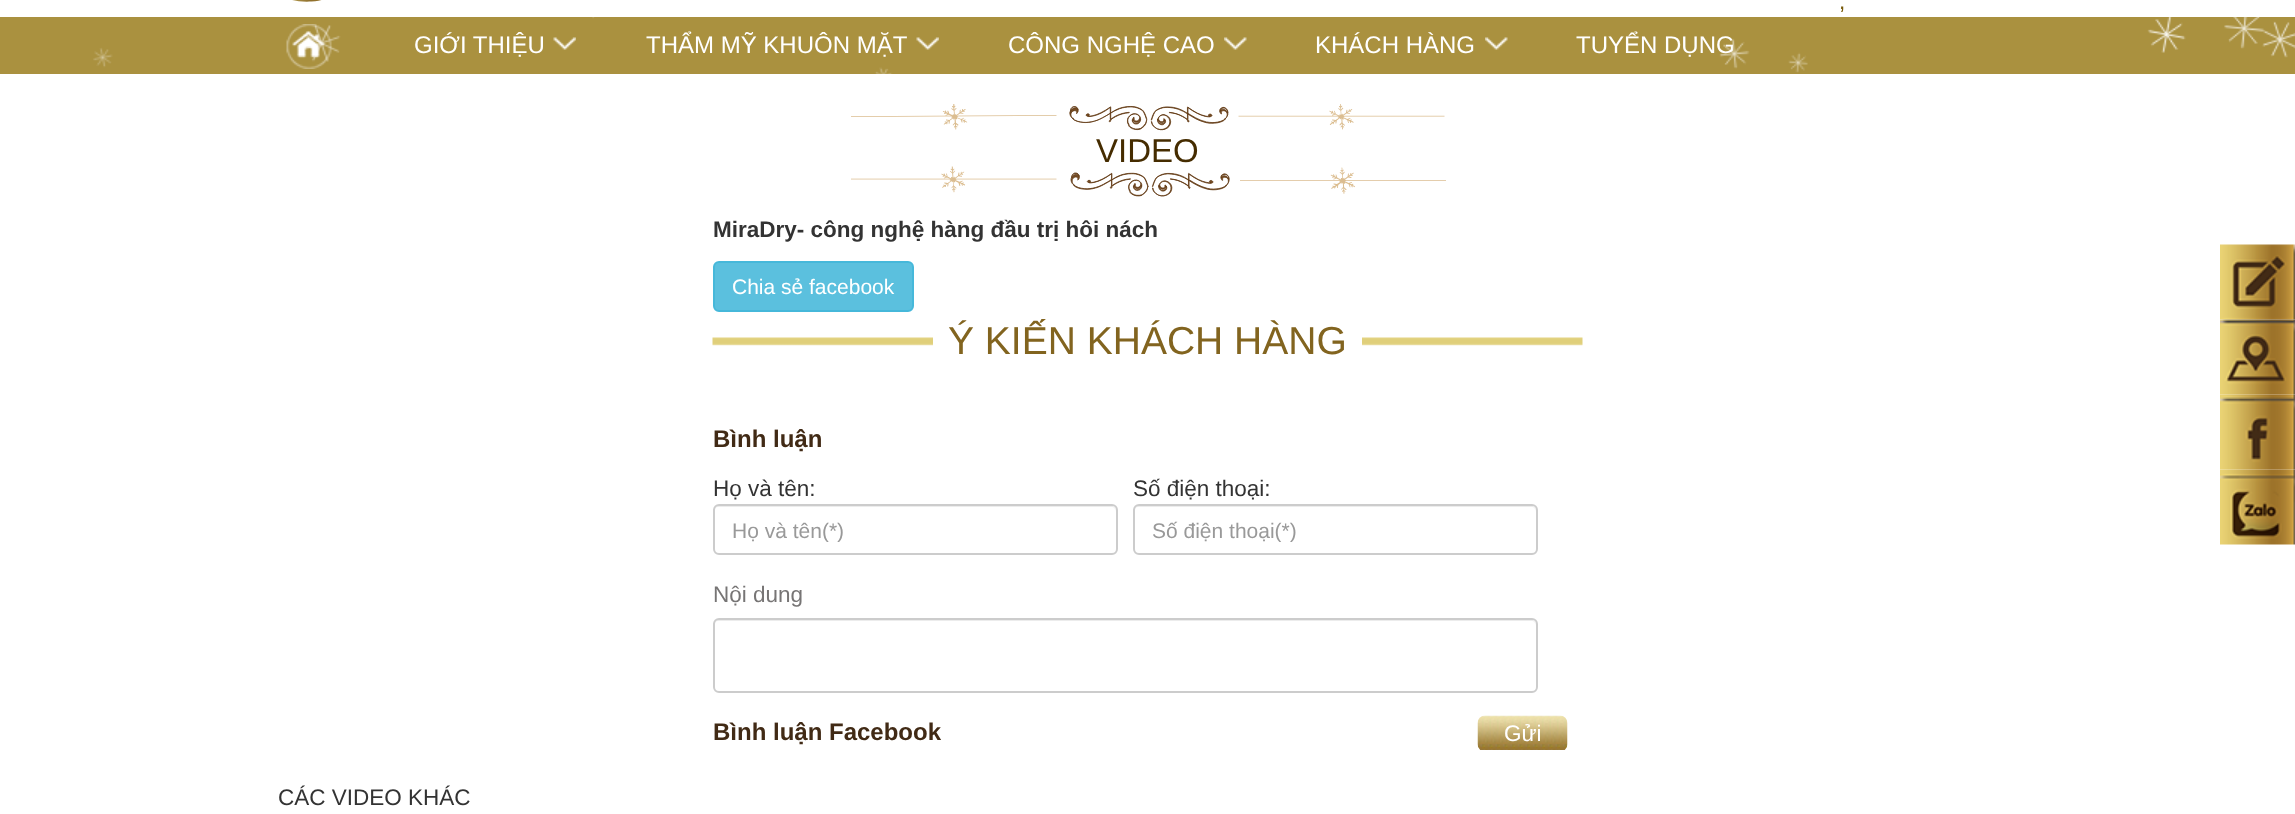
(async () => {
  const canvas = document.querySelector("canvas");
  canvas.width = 2295;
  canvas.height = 814;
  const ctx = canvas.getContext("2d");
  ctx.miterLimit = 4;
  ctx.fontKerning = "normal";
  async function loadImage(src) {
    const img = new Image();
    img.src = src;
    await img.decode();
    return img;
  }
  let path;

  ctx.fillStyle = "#ffffff";
  ctx.fillRect(0, 0, 2295, 814);
  ctx.drawImage(await loadImage("img/2.png"), 292, 0, 30, 2);
  ctx.fillStyle = "#aa913f";
  ctx.fillRect(0, 17, 2295, 57);
  ctx.drawImage(await loadImage("img/3.png"), 286, 24, 46, 45);
  ctx.drawImage(await loadImage("img/4.png"), 553, 37, 23, 13);
  ctx.drawImage(await loadImage("img/5.png"), 916, 37, 23, 13);
  ctx.drawImage(await loadImage("img/6.png"), 1224, 37, 23, 13);
  ctx.drawImage(await loadImage("img/6.png"), 1485, 37, 23, 13);
  ctx.drawImage(await loadImage("img/7.png"), 851, 104, 595, 93);
  ctx.fillStyle = "#5bc0de";
  ctx.beginPath();
  ctx.roundRect(714, 262, 199, 49, 5);
  ctx.fill();
  ctx.strokeStyle = "#46b8da";
  ctx.lineWidth = 2;
  ctx.stroke();
  ctx.drawImage(await loadImage("img/8.png"), 712, 337, 871, 9);
  ctx.fillStyle = "#ffffff";
  ctx.fillRect(933, 337, 429, 9);
  ctx.fillStyle = "#ececec";
  path = new Path2D("M718 507H1112C1114 507 1116 509 1116 512V511C1116 508 1114 506 1111 506H719C716 506 714 508 714 511V512C714 509 716 507 718 507Z");
  ctx.fill(path);
  ctx.beginPath();
  ctx.roundRect(714, 505, 403, 49, 5);
  ctx.strokeStyle = "#cccccc";
  ctx.stroke();
  path = new Path2D("M1138 507H1532C1534 507 1536 509 1536 512V511C1536 508 1534 506 1531 506H1139C1136 506 1134 508 1134 511V512C1134 509 1136 507 1138 507Z");
  ctx.fill(path);
  ctx.beginPath();
  ctx.roundRect(1134, 505, 403, 49, 5);
  ctx.stroke();
  path = new Path2D("M718 621H1532C1534 621 1536 623 1536 626V625C1536 622 1534 620 1531 620H719C716 620 714 622 714 625V626C714 623 716 621 718 621Z");
  ctx.fill(path);
  ctx.beginPath();
  ctx.roundRect(714, 619, 823, 73, 5);
  ctx.stroke();
  ctx.drawImage(await loadImage("img/9.png"), 1477, 715, 91, 35);
  ctx.drawImage(await loadImage("img/10.png"), 2220, 244, 75, 76);
  ctx.drawImage(await loadImage("img/11.png"), 2220, 319, 75, 76);
  ctx.drawImage(await loadImage("img/12.png"), 2220, 394, 75, 76);
  ctx.drawImage(await loadImage("img/13.png"), 2220, 469, 75, 76);
  ctx.font = "22.5px Liberation Sans";
  ctx.fillStyle = "#775908";
  ctx.fillText(",", 1839, 9);
  ctx.font = "24px Liberation Sans";
  ctx.fillStyle = "#ffffff";
  for (const [text, x, y] of [
    ["GIỚI THIỆU", 414, 53],
    ["THẨM MỸ KHUÔN MẶT", 646, 53],
    ["CÔNG NGHỆ CAO", 1008, 53],
    ["KHÁCH HÀNG", 1315, 53],
    ["TUYỂN DỤNG", 1576, 53],
  ]) {
    ctx.fillText(text, x, y);
  }
  ctx.drawImage(await loadImage("img/1.png"), 93, 0, 2202, 74);
  ctx.font = "33px Liberation Sans";
  ctx.fillStyle = "#452c00";
  ctx.fillText("VIDEO", 1096, 162);
  ctx.font = "bold 22.5px Liberation Sans";
  ctx.fillStyle = "#333333";
  ctx.fillText("MiraDry- công nghệ hàng đầu trị hôi nách", 713, 237);
  ctx.font = "21px Liberation Sans";
  ctx.fillStyle = "#ffffff";
  ctx.fillText("Chia sẻ facebook", 732, 294);
  ctx.font = "39px Liberation Sans";
  ctx.fillStyle = "#82641f";
  ctx.fillText("Ý KIẾN KHÁCH HÀNG", 948, 354);
  ctx.font = "bold 24px Liberation Sans";
  ctx.fillStyle = "#412a15";
  ctx.fillText("Bình luận", 713, 447);
  ctx.font = "22.5px Liberation Sans";
  ctx.fillStyle = "#333333";
  ctx.fillText("Họ và tên:", 713, 496);
  ctx.save();
  ctx.beginPath();
  ctx.rect(732, 518, 366, 24);
  ctx.clip();
  ctx.font = "21px Liberation Sans";
  ctx.fillStyle = "#999999";
  ctx.fillText("Họ và tên(*)", 732, 538);
  ctx.restore();
  ctx.fillText("Số điện thoại:", 1133, 496);
  ctx.save();
  ctx.beginPath();
  ctx.rect(1152, 518, 366, 24);
  ctx.clip();
  ctx.font = "21px Liberation Sans";
  ctx.fillStyle = "#999999";
  ctx.fillText("Số điện thoại(*)", 1152, 538);
  ctx.restore();
  ctx.fillStyle = "#777575";
  ctx.fillText("Nội dung", 713, 602);
  ctx.fillStyle = "#ffffff";
  ctx.fillText("Gửi", 1504, 741);
  ctx.font = "bold 24px Liberation Sans";
  ctx.fillStyle = "#412a15";
  ctx.fillText("Bình luận Facebook", 713, 740);
  ctx.font = "22.5px Liberation Sans";
  ctx.fillStyle = "#333333";
  ctx.fillText("CÁC VIDEO KHÁC", 278, 805);
})();
